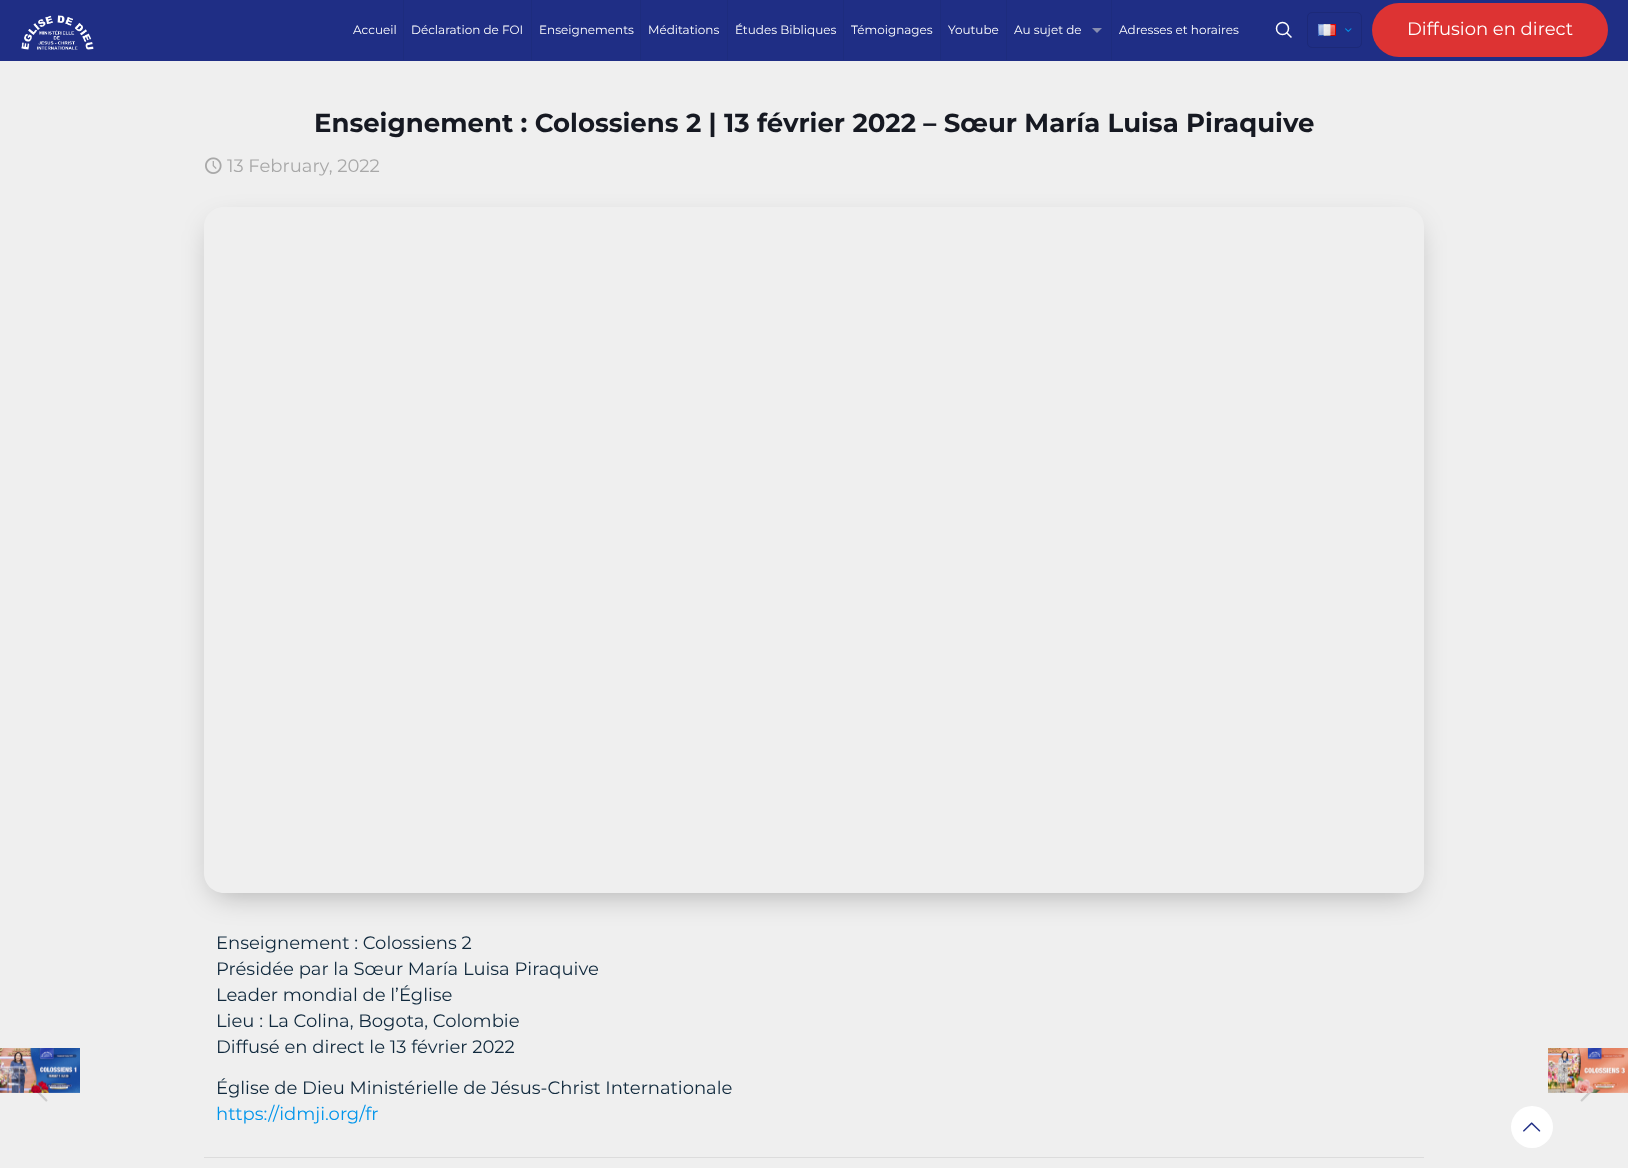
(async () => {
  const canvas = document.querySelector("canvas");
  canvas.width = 1628;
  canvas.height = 1168;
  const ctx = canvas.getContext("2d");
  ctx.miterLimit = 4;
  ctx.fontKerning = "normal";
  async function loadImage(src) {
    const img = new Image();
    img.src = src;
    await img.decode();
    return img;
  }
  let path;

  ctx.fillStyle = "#efefef";
  ctx.fillRect(0, 0, 1628, 1168);
  ctx.drawImage(await loadImage("img/2.png"), 36, 1092, 12, 10);
  ctx.drawImage(await loadImage("img/1.png"), 0, 1048, 80, 45);
  ctx.fillStyle = "#1f2e85";
  ctx.fillRect(0, 0, 1628, 61);
  ctx.drawImage(await loadImage("img/3.png"), 21, 15, 73, 35);
  for (const [x, y, w, h, color] of [
    [403, 0, 1, 60, "#1d2c7e"],
    [531, 0, 1, 60, "#1d2c7e"],
    [640, 0, 1, 60, "#1d2c7e"],
    [727, 0, 1, 60, "#1d2c7e"],
    [843, 0, 1, 60, "#1d2c7e"],
    [940, 0, 1, 60, "#1d2c7e"],
    [1006, 0, 1, 60, "#1d2c7e"],
    [1111, 0, 1, 60, "#1d2c7e"],
  ]) {
    ctx.fillStyle = color;
    ctx.fillRect(x, y, w, h);
  }
  ctx.fillStyle = "#878db0";
  path = new Path2D("M1092 28H1102L1097 33Z");
  ctx.fill(path);
  ctx.beginPath();
  ctx.arc(1282.5, 28.5, 6, 0, Math.PI * 2);
  ctx.strokeStyle = "#ffffff";
  ctx.lineWidth = 1.5;
  ctx.stroke();
  path = new Path2D("M1286.5 32.5L1291.5 37.5");
  ctx.stroke(path);
  ctx.beginPath();
  ctx.roundRect(1307.5, 12.5, 54, 35, 4.5);
  ctx.strokeStyle = "#1c2978";
  ctx.lineWidth = 1;
  ctx.stroke();
  ctx.drawImage(await loadImage("img/4.png"), 1318, 24, 18, 12);
  ctx.drawImage(await loadImage("img/5.png"), 1345, 28, 7, 4);
  ctx.fillStyle = "#dd3333";
  ctx.beginPath();
  ctx.roundRect(1372, 3, 236, 54, 27);
  ctx.fill();
  ctx.drawImage(await loadImage("img/6.png"), 205, 157, 17, 17);
  ctx.save();
  path = new Path2D("M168 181H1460V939H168ZM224 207H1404C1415 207 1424 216 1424 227V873C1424 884 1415 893 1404 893H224C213 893 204 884 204 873V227C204 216 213 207 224 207Z");
  ctx.clip(path, "evenodd");
  ctx.fillStyle = "rgba(0, 0, 0, 0.3)";
  ctx.filter = "blur(15px)";
  ctx.beginPath();
  ctx.roundRect(214, 227, 1200, 666, 10);
  ctx.fill();
  ctx.filter = "none";
  ctx.restore();
  ctx.fillStyle = "#dcdcdc";
  ctx.fillRect(204, 1157, 1220, 1);
  ctx.drawImage(await loadImage("img/8.png"), 1580, 1092, 12, 10);
  ctx.drawImage(await loadImage("img/7.png"), 1548, 1048, 80, 45);
  ctx.fillStyle = "#ffffff";
  ctx.beginPath();
  ctx.arc(1532, 1127, 21, 0, Math.PI * 2);
  ctx.fill();
  ctx.drawImage(await loadImage("img/9.png"), 1523, 1122, 18, 10);
  ctx.font = "12px Montserrat";
  for (const [text, x, y] of [
    ["Accueil", 353, 34],
    ["Déclaration de FOI", 411, 34],
    ["Enseignements", 539, 34],
    ["Méditations", 648, 34],
    ["Études Bibliques", 735, 34],
    ["Témoignages", 851, 34],
    ["Youtube", 948, 34],
    ["Au sujet de", 1014, 34],
    ["Adresses et horaires", 1119, 34],
  ]) {
    ctx.fillText(text, x, y);
  }
  ctx.font = "18px Montserrat";
  ctx.fillText("Diffusion en direct", 1407, 35);
  ctx.font = "bold 26px Montserrat";
  ctx.fillStyle = "#161922";
  ctx.fillText("Enseignement : Colossiens 2 | 13 février 2022 – Sœur María Luisa Piraquive", 314, 132);
  ctx.font = "18px Montserrat";
  ctx.fillStyle = "#a8a8a8";
  ctx.fillText("13 February, 2022", 227, 172);
  ctx.fillStyle = "#10293d";
  for (const [text, x, y] of [
    ["Enseignement : Colossiens 2", 216, 949],
    ["Présidée par la Sœur María Luisa Piraquive", 216, 975],
    ["Leader mondial de l’Église", 216, 1001],
    ["Lieu : La Colina, Bogota, Colombie", 216, 1027],
    ["Diffusé en direct le 13 février 2022", 216, 1053],
    ["Église de Dieu Ministérielle de Jésus-Christ Internationale", 216, 1094],
  ]) {
    ctx.fillText(text, x, y);
  }
  ctx.fillStyle = "#0095eb";
  ctx.fillText("https://idmji.org/fr", 216, 1120);
})();
